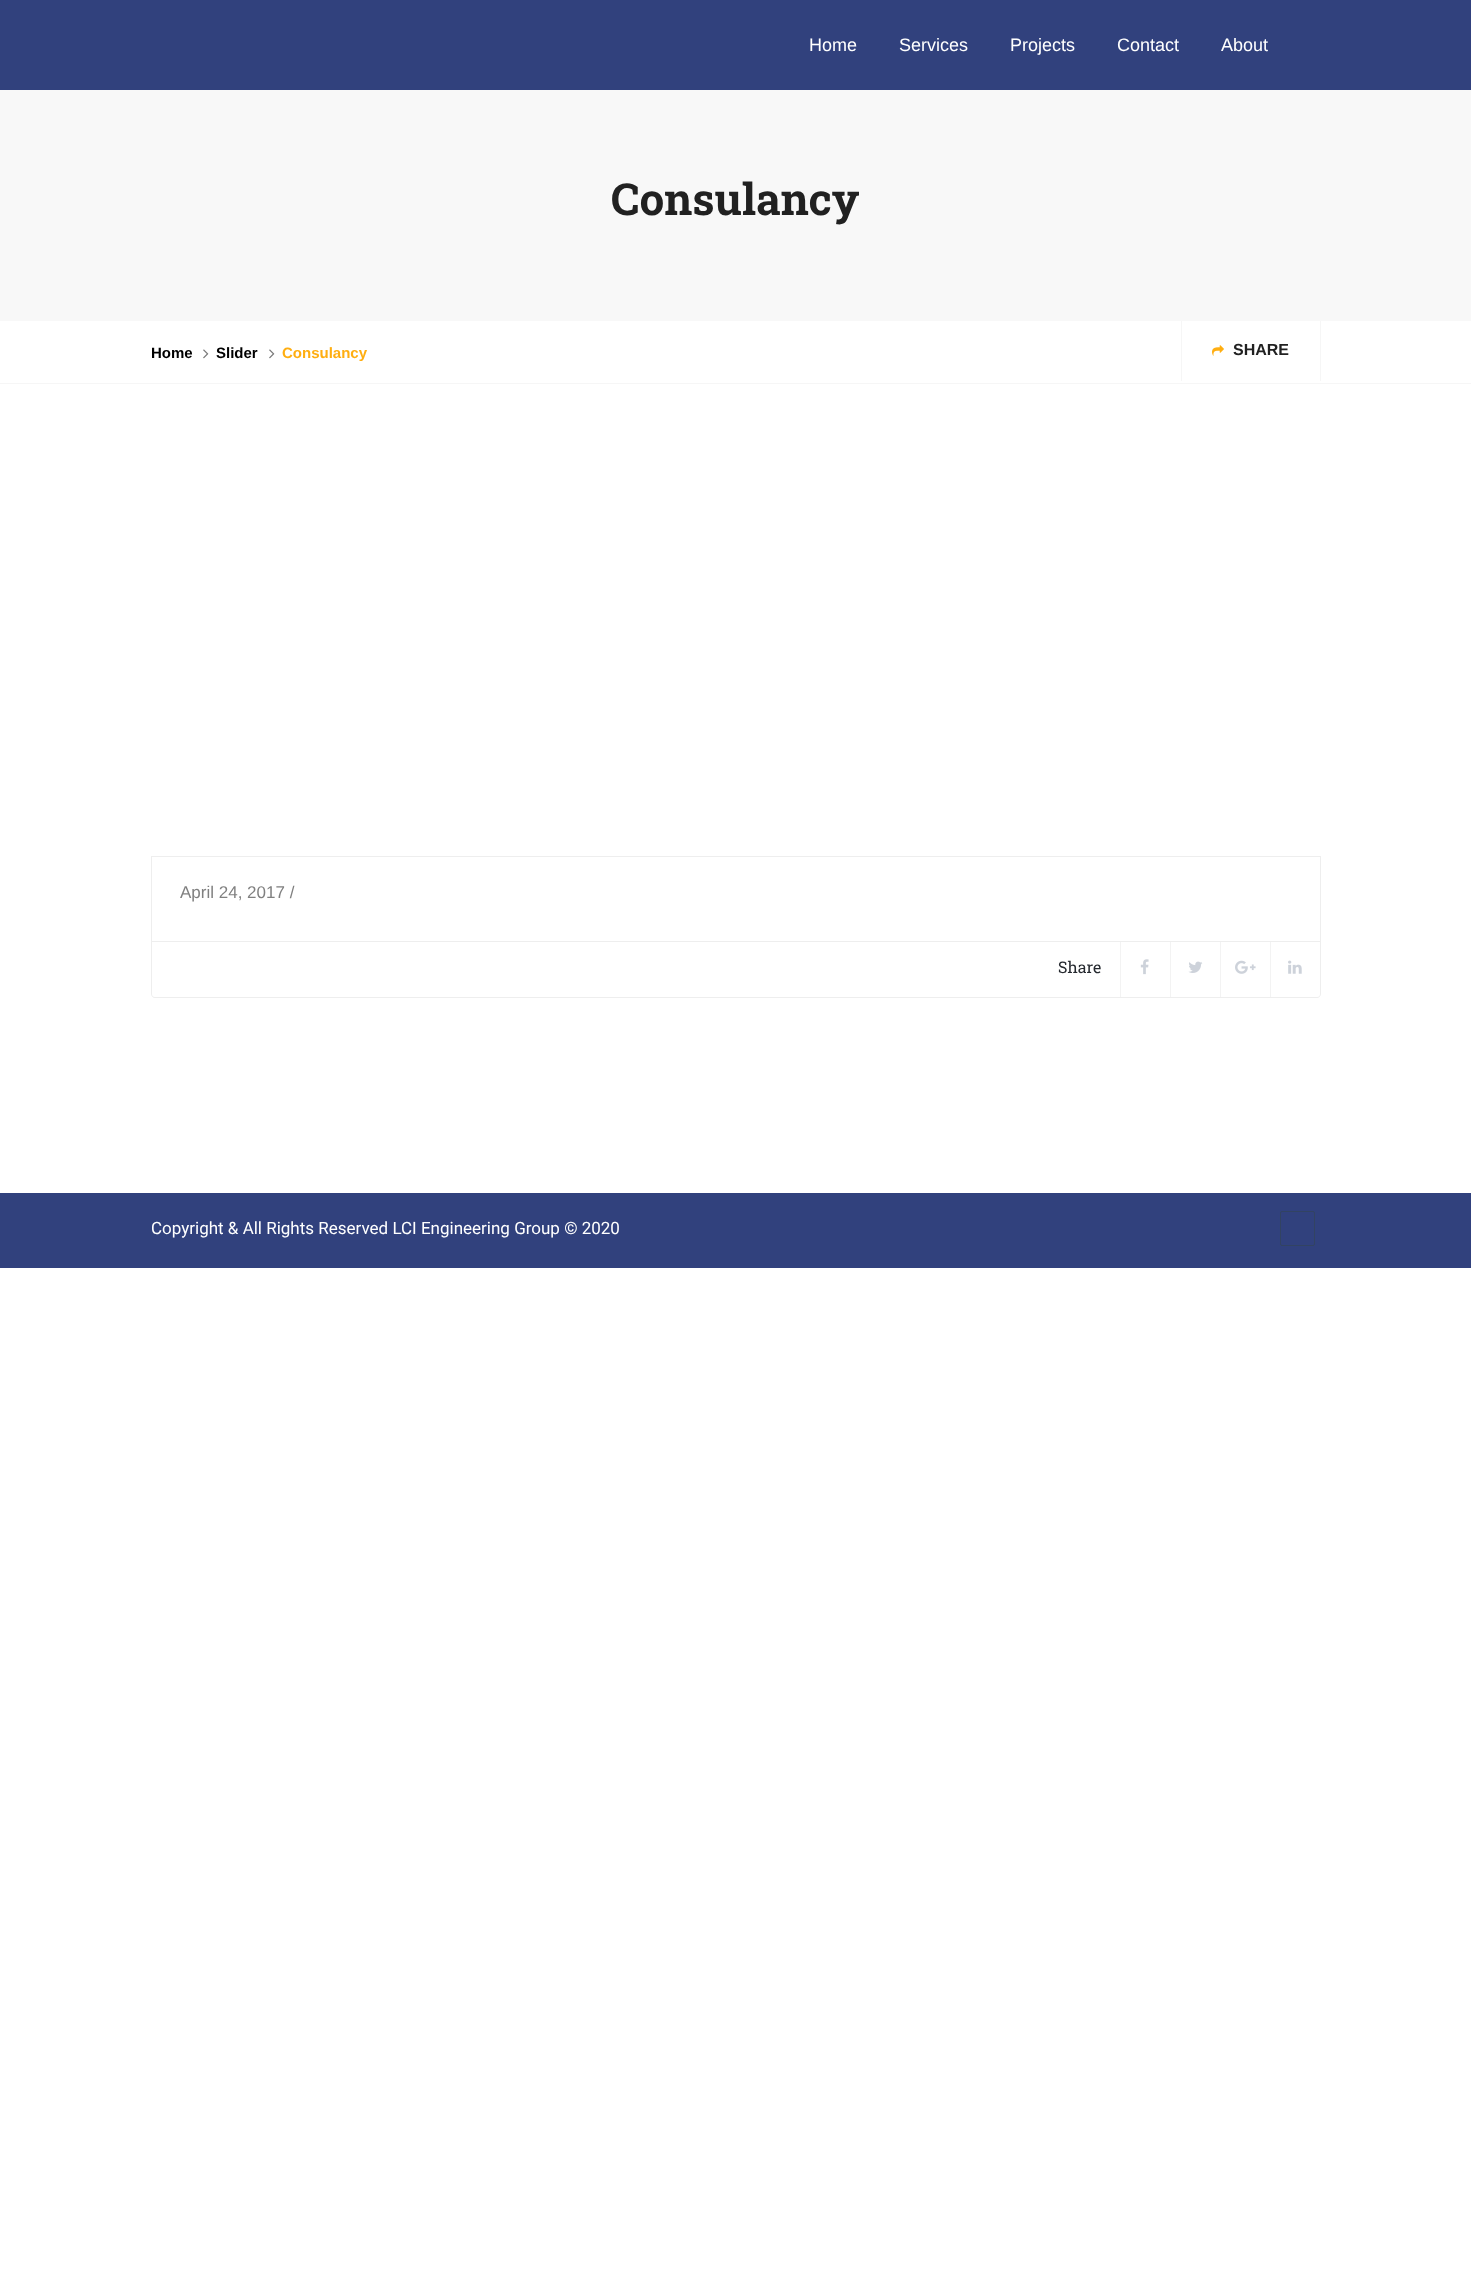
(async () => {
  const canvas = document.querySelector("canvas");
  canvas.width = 1471;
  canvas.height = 2282;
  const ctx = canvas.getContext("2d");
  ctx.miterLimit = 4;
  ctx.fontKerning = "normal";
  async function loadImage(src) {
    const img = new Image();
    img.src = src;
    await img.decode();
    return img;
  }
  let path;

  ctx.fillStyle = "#ffffff";
  ctx.fillRect(0, 0, 1471, 2282);
  for (const [x, y, w, h, color] of [
    [0, 0, 1471, 90, "#31417d"],
    [0, 90, 1471, 231, "#f8f8f8"],
    [0, 383, 1471, 1, "#f6f6f6"],
  ]) {
    ctx.fillStyle = color;
    ctx.fillRect(x, y, w, h);
  }
  ctx.drawImage(await loadImage("img/1.png"), 203, 349, 6, 10);
  ctx.drawImage(await loadImage("img/1.png"), 269, 349, 6, 10);
  ctx.fillRect(1320, 321, 1, 60);
  ctx.fillRect(1181, 321, 1, 60);
  ctx.drawImage(await loadImage("img/2.png"), 1212, 345, 12, 11);
  ctx.strokeStyle = "#eeeeee";
  ctx.strokeRect(151.5, 856.5, 1169, 85);
  ctx.fillStyle = "#eeeeee";
  path = new Path2D("M151 942H1321V994C1321 996 1319 998 1317 998H155C153 998 151 996 151 994ZM152 942H1320V994C1320 996 1319 997 1317 997H155C153 997 152 996 152 994Z");
  ctx.fill(path, "evenodd");
  ctx.fillStyle = "#f3f3f3";
  ctx.fillRect(1120, 942, 1, 55);
  ctx.drawImage(await loadImage("img/3.png"), 1140, 959, 9, 16);
  ctx.fillRect(1170, 942, 1, 55);
  ctx.drawImage(await loadImage("img/4.png"), 1188, 961, 15, 12);
  ctx.fillRect(1220, 942, 1, 55);
  ctx.drawImage(await loadImage("img/5.png"), 1235, 960, 21, 14);
  ctx.fillRect(1270, 942, 1, 55);
  ctx.drawImage(await loadImage("img/6.png"), 1288, 960, 14, 14);
  ctx.fillStyle = "#31417d";
  ctx.fillRect(0, 1193, 1471, 75);
  ctx.beginPath();
  ctx.roundRect(1280.5, 1211.5, 34, 34, 1.5);
  ctx.strokeStyle = "#324362";
  ctx.stroke();
  ctx.font = "18px Liberation Sans";
  ctx.fillStyle = "#ffffff";
  for (const [text, x, y] of [
    ["Home", 809, 51],
    ["Services", 899, 51],
    ["Projects", 1010, 51],
    ["Contact", 1117, 51],
    ["About", 1221, 51],
  ]) {
    ctx.fillText(text, x, y);
  }
  ctx.font = "bold 44px Roboto Slab";
  ctx.fillStyle = "#212121";
  ctx.fillText("Consulancy", 611, 215);
  ctx.font = "bold 15px Liberation Sans";
  ctx.fillStyle = "#000000";
  ctx.fillText("Home", 151, 358);
  ctx.fillText("Slider", 216, 358);
  ctx.fillStyle = "#ffae11";
  ctx.fillText("Consulancy", 282, 358);
  ctx.font = "bold 16px Liberation Sans";
  ctx.fillStyle = "#212121";
  ctx.fillText("SHARE", 1233, 355);
  ctx.font = "17px Liberation Sans";
  ctx.fillStyle = "#808080";
  ctx.fillText("April 24, 2017 /", 180, 898);
  ctx.font = "16px Roboto Slab";
  ctx.fillStyle = "#25292f";
  ctx.fillText("Share", 1058, 973);
  ctx.font = "17px Roboto";
  ctx.fillStyle = "#ffffff";
  ctx.fillText("Copyright & All Rights Reserved LCI Engineering Group © 2020", 151, 1234);
})();
